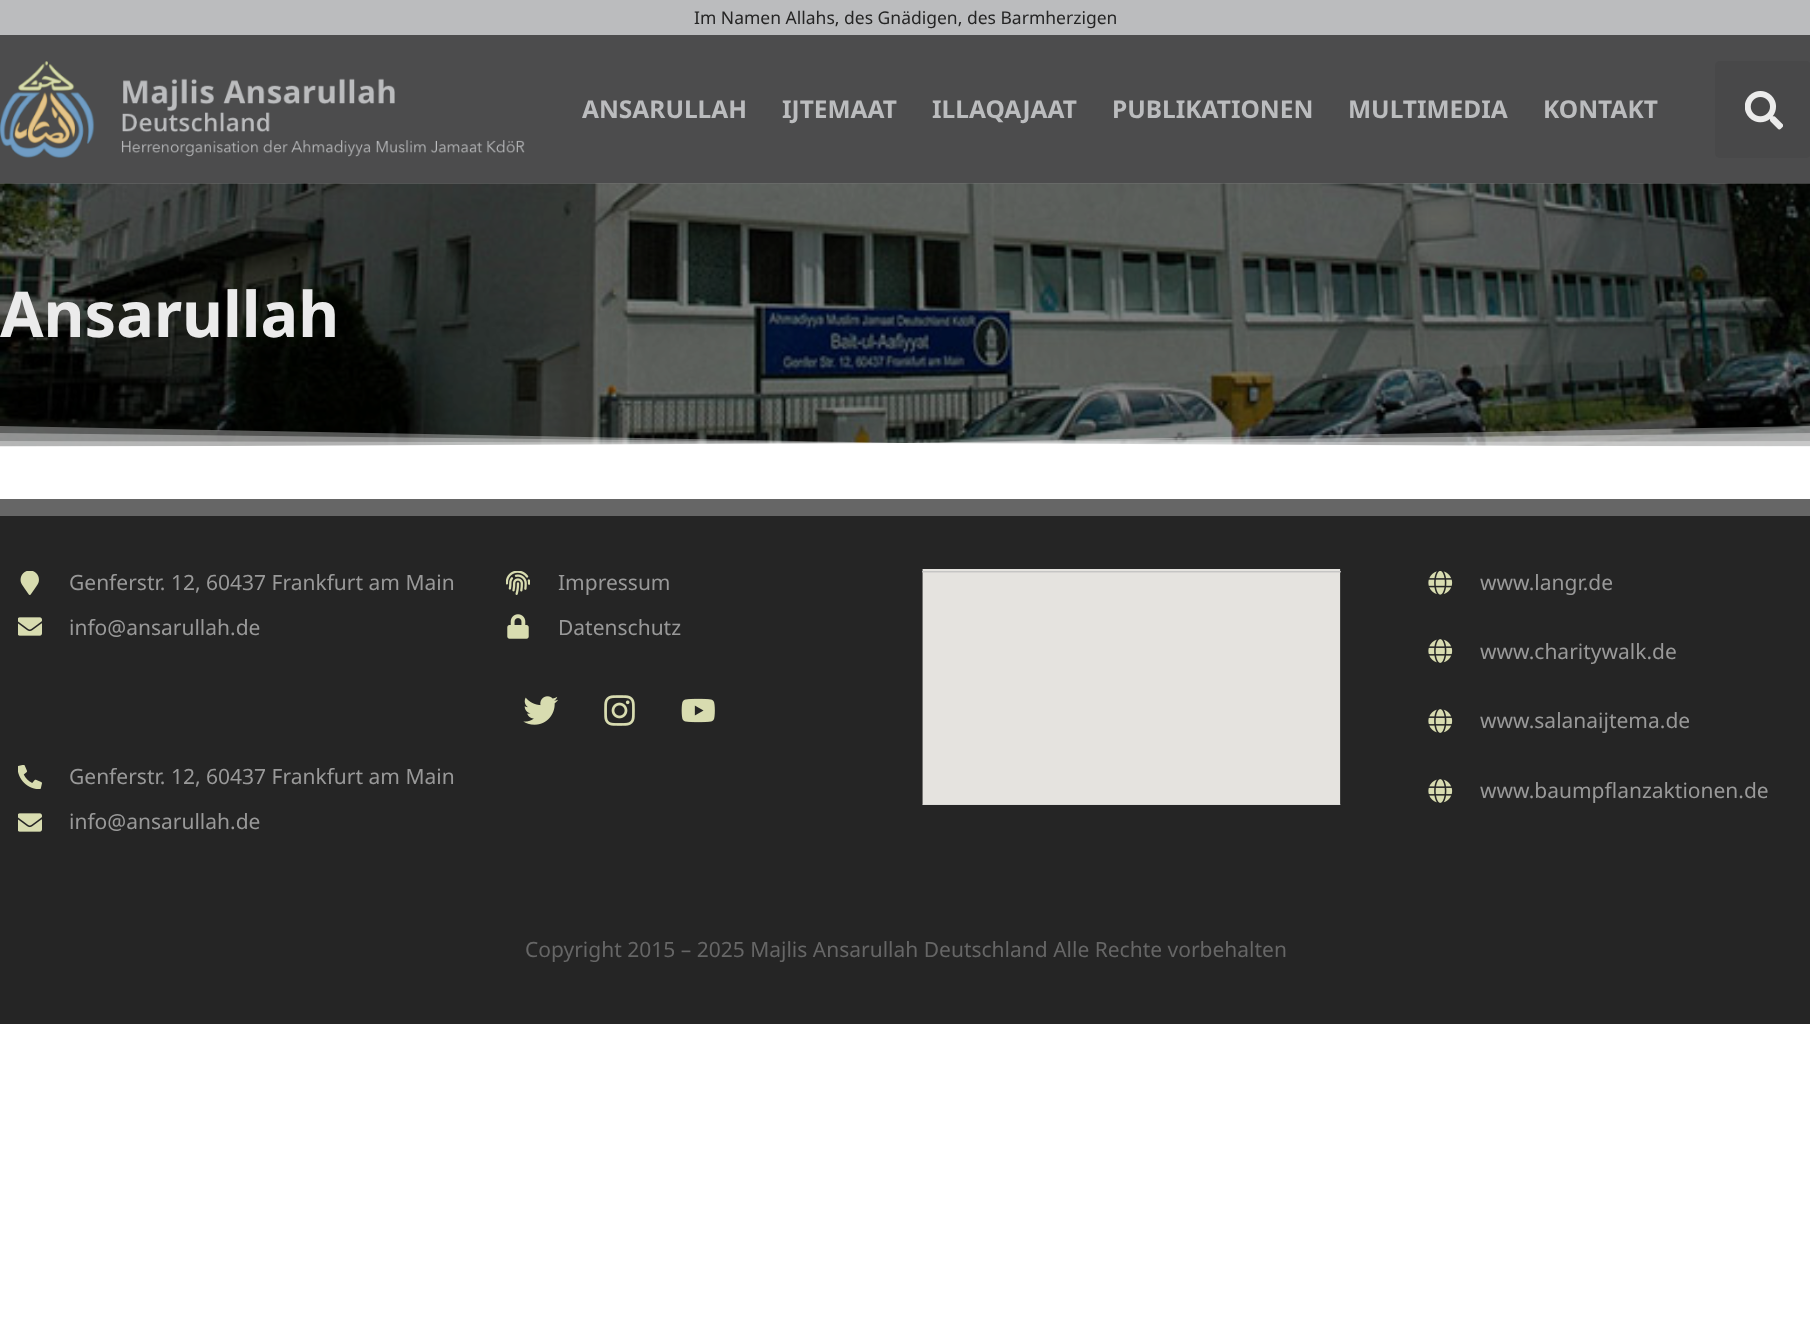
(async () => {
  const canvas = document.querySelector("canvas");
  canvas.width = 1810;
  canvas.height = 1333;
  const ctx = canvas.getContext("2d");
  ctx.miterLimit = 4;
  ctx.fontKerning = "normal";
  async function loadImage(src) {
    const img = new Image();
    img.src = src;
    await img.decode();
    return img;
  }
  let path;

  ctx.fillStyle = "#ffffff";
  ctx.fillRect(0, 0, 1810, 1333);
  ctx.fillStyle = "#bbbcbe";
  ctx.fillRect(0, 0, 1810, 35);
  ctx.fillStyle = "#4c4c4d";
  ctx.fillRect(0, 35, 1810, 149);
  ctx.drawImage(await loadImage("img/1.png"), 0, 61, 525, 97);
  ctx.fillStyle = "#484849";
  ctx.beginPath();
  ctx.roundRect(1715, 61, 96, 97, 5);
  ctx.fill();
  ctx.drawImage(await loadImage("img/2.png"), 1745, 91, 38, 39);
  ctx.drawImage(await loadImage("img/3.png"), 0, 183, 1810, 264);
  ctx.fillStyle = "rgba(255, 255, 255, 0.33)";
  path = new Path2D("M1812 448V426L904 443L-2 426V448Z");
  ctx.fill(path);
  path = new Path2D("M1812 448V433L904 443L-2 433V448Z");
  ctx.fill(path);
  path = new Path2D("M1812 448V441L904 443L-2 441V448Z");
  ctx.fill(path);
  ctx.fillStyle = "#ffffff";
  path = new Path2D("M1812 448V447L904 443L-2 447V448Z");
  ctx.fill(path);
  ctx.fillStyle = "#252525";
  ctx.fillRect(0, 516, 1810, 508);
  ctx.fillStyle = "#666666";
  ctx.fillRect(0, 499, 1810, 17);
  ctx.drawImage(await loadImage("img/4.png"), 20, 571, 19, 24);
  ctx.drawImage(await loadImage("img/5.png"), 18, 617, 24, 19);
  ctx.drawImage(await loadImage("img/6.png"), 18, 765, 24, 24);
  ctx.drawImage(await loadImage("img/5.png"), 18, 813, 24, 19);
  ctx.drawImage(await loadImage("img/7.png"), 506, 571, 24, 24);
  ctx.drawImage(await loadImage("img/8.png"), 507, 614, 22, 25);
  ctx.drawImage(await loadImage("img/9.png"), 523, 696, 35, 29);
  ctx.drawImage(await loadImage("img/10.png"), 604, 695, 31, 31);
  ctx.drawImage(await loadImage("img/11.png"), 681, 698, 34, 25);
  ctx.drawImage(await loadImage("img/12.png"), 922, 569, 419, 236);
  ctx.drawImage(await loadImage("img/13.png"), 1428, 571, 25, 24);
  ctx.drawImage(await loadImage("img/14.png"), 1428, 639, 25, 24);
  ctx.drawImage(await loadImage("img/14.png"), 1428, 709, 25, 24);
  ctx.drawImage(await loadImage("img/14.png"), 1428, 779, 25, 24);
  ctx.font = "17.5px Noto Sans";
  ctx.fillStyle = "#252525";
  ctx.fillText("Im Namen Allahs, des Gnädigen, des Barmherzigen", 694, 24);
  ctx.font = "bold 24.5px Noto Sans";
  ctx.fillStyle = "#bbbcbe";
  for (const [text, x, y] of [
    ["ANSARULLAH", 582, 118],
    ["IJTEMAAT", 782, 118],
    ["ILLAQAJAAT", 932, 118],
    ["PUBLIKATIONEN", 1112, 118],
    ["MULTIMEDIA", 1348, 118],
    ["KONTAKT", 1543, 118],
  ]) {
    ctx.fillText(text, x, y);
  }
  ctx.font = "bold 63px Noto Sans";
  ctx.fillStyle = "#ebebeb";
  ctx.fillText("Ansarullah", 0, 337);
  ctx.font = "21px Noto Sans";
  ctx.fillStyle = "#999999";
  for (const [text, x, y] of [
    ["Genferstr. 12, 60437 Frankfurt am Main", 69, 590],
    ["info@ansarullah.de", 69, 635],
    ["Genferstr. 12, 60437 Frankfurt am Main", 69, 784],
    ["info@ansarullah.de", 69, 829],
    ["Impressum", 558, 590],
    ["Datenschutz", 558, 635],
    ["www.langr.de", 1480, 590],
    ["www.charitywalk.de", 1480, 659],
    ["www.salanaijtema.de", 1480, 728],
    ["www.baumpflanzaktionen.de", 1480, 798],
  ]) {
    ctx.fillText(text, x, y);
  }
  ctx.fillStyle = "#666666";
  ctx.fillText("Copyright 2015 – 2025 Majlis Ansarullah Deutschland Alle Rechte vorbehalten", 525, 957);
})();
